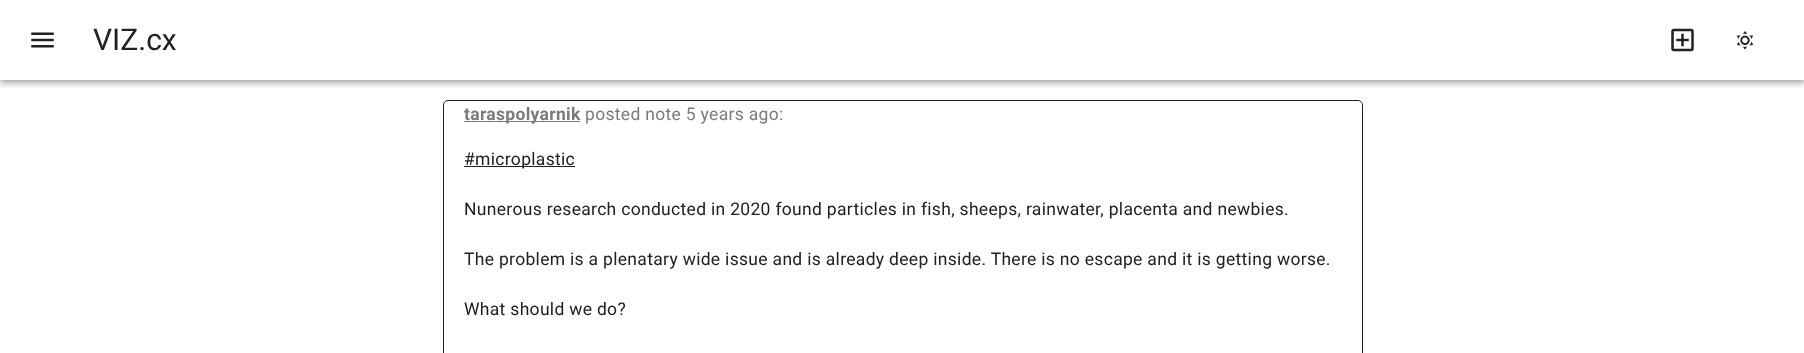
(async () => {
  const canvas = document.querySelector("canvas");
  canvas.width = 1804;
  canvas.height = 353;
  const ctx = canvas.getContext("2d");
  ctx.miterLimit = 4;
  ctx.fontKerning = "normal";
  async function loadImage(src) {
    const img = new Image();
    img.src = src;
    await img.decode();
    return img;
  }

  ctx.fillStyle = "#ffffff";
  ctx.fillRect(0, 0, 1804, 353);
  ctx.save();
  ctx.beginPath();
  ctx.rect(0, 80, 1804, 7);
  ctx.clip();
  ctx.fillStyle = "rgba(0, 0, 0, 0.12)";
  ctx.filter = "blur(6px)";
  ctx.beginPath();
  ctx.rect(0, 1, 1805, 80);
  ctx.fill();
  ctx.filter = "none";
  ctx.restore();
  ctx.save();
  ctx.beginPath();
  ctx.rect(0, 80, 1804, 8);
  ctx.clip();
  ctx.fillStyle = "rgba(0, 0, 0, 0.14)";
  ctx.filter = "blur(3px)";
  ctx.beginPath();
  ctx.rect(0, 5, 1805, 80);
  ctx.fill();
  ctx.filter = "none";
  ctx.restore();
  ctx.save();
  ctx.beginPath();
  ctx.rect(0, 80, 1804, 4);
  ctx.clip();
  ctx.fillStyle = "rgba(0, 0, 0, 0.2)";
  ctx.filter = "blur(2.5px)";
  ctx.beginPath();
  ctx.rect(1, 4, 1803, 77);
  ctx.fill();
  ctx.filter = "none";
  ctx.restore();
  ctx.drawImage(await loadImage("img/1.png"), 31, 32, 23, 16);
  ctx.drawImage(await loadImage("img/2.png"), 1671, 28, 23, 24);
  ctx.drawImage(await loadImage("img/3.png"), 1737, 31, 16, 19);
  ctx.beginPath();
  ctx.roundRect(443.5, 100.5, 919, 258, 4.5);
  ctx.strokeStyle = "#212121";
  ctx.stroke();
  ctx.fillStyle = "#7a7a7a";
  ctx.fillRect(464, 121, 116, 1);
  ctx.fillStyle = "#212121";
  ctx.fillRect(464, 166, 111, 1);
  ctx.font = "30px Roboto";
  ctx.fillText("VIZ.cx", 93, 50);
  ctx.letterSpacing = "0.31px";
  ctx.font = "bold 17.5px Roboto";
  ctx.fillStyle = "#7a7a7a";
  ctx.fillText("taraspolyarnik", 464, 120);
  ctx.font = "17.5px Roboto";
  ctx.fillText("posted note 5 years ago:", 585, 120);
  ctx.fillStyle = "#212121";
  for (const [text, x, y] of [
    ["#microplastic", 464, 165],
    ["Nunerous research conducted in 2020 found particles in fish, sheeps, rainwater, placenta and newbies.", 464, 215],
    ["The problem is a plenatary wide issue and is already deep inside. There is no escape and it is getting worse.", 464, 265],
    ["What should we do?", 464, 315],
  ]) {
    ctx.fillText(text, x, y);
  }
})();
